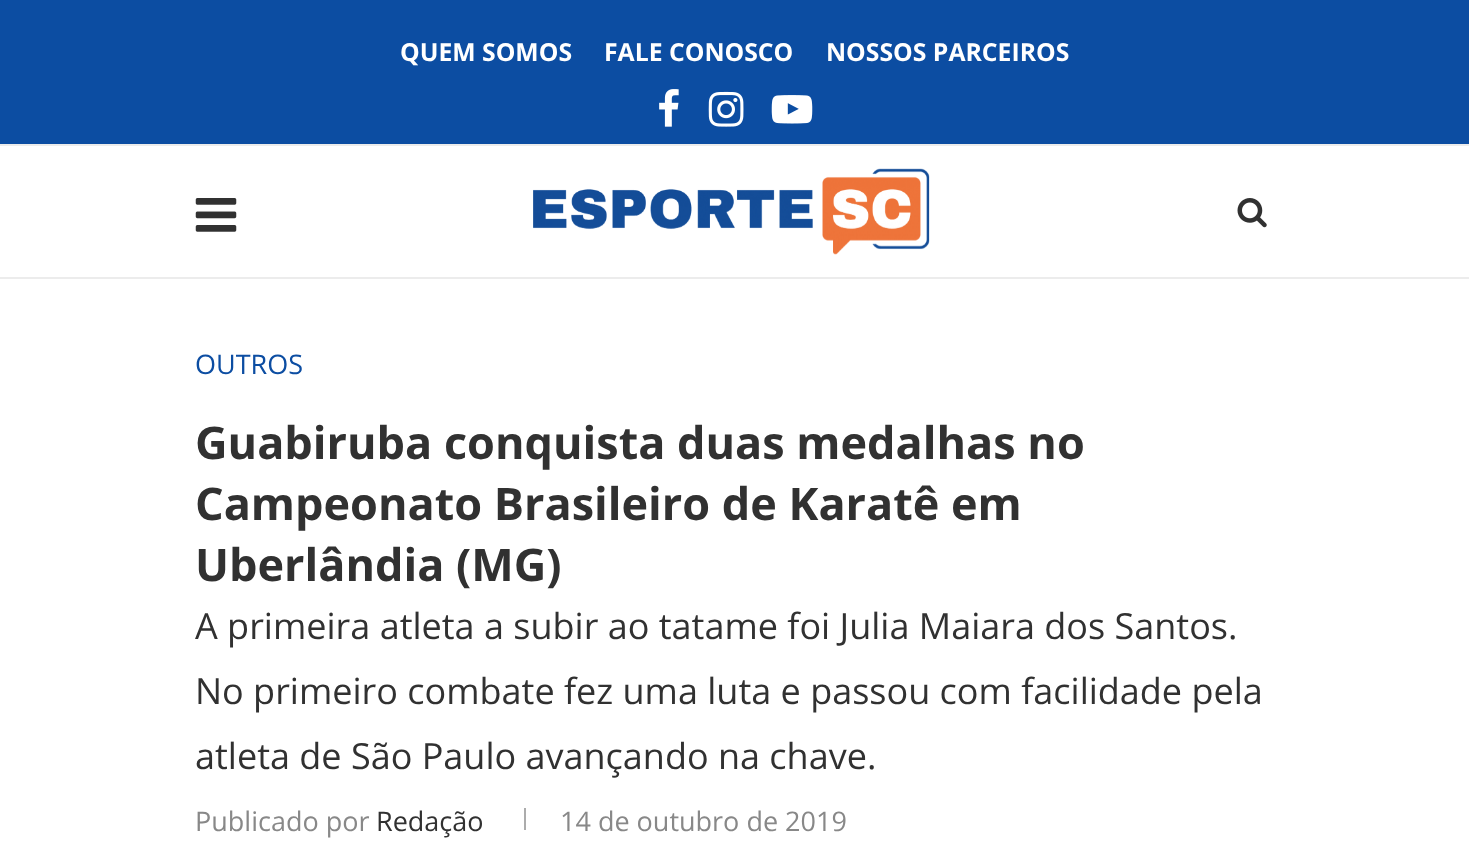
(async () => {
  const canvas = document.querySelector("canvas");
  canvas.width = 1469;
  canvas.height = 857;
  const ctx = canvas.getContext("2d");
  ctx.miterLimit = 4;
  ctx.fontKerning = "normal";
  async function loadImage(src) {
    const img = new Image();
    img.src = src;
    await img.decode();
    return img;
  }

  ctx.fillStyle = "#ffffff";
  ctx.fillRect(0, 0, 1469, 857);
  ctx.fillStyle = "#0c4da2";
  ctx.fillRect(0, 0, 1469, 144);
  ctx.drawImage(await loadImage("img/1.png"), 659, 89, 20, 38);
  ctx.drawImage(await loadImage("img/2.png"), 708, 91, 36, 36);
  ctx.drawImage(await loadImage("img/3.png"), 771, 95, 42, 29);
  ctx.fillStyle = "#ececec";
  ctx.fillRect(0, 144, 1469, 2);
  ctx.fillRect(0, 277, 1469, 2);
  ctx.drawImage(await loadImage("img/4.png"), 195, 198, 42, 34);
  ctx.drawImage(await loadImage("img/5.png"), 533, 168, 397, 87);
  ctx.drawImage(await loadImage("img/6.png"), 1237, 198, 30, 30);
  ctx.fillStyle = "#acacac";
  ctx.fillRect(524, 808, 2, 22);
  ctx.font = "bold 24.75px Open Sans";
  ctx.fillStyle = "#ffffff";
  for (const [text, x, y] of [
    ["QUEM SOMOS", 400, 61],
    ["FALE CONOSCO", 604, 61],
    ["NOSSOS PARCEIROS", 826, 61],
  ]) {
    ctx.fillText(text, x, y);
  }
  ctx.font = "27px Open Sans";
  ctx.fillStyle = "#0c4da2";
  ctx.fillText("OUTROS", 195, 374);
  ctx.font = "bold 45px Open Sans";
  ctx.fillStyle = "#313131";
  for (const [text, x, y] of [
    ["Guabiruba conquista duas medalhas no", 195, 459],
    ["Campeonato Brasileiro de Karatê em", 195, 520],
    ["Uberlândia (MG)", 195, 581],
  ]) {
    ctx.fillText(text, x, y);
  }
  ctx.font = "36px Open Sans";
  for (const [text, x, y] of [
    ["A primeira atleta a subir ao tatame foi Julia Maiara dos Santos.", 195, 639],
    ["No primeiro combate fez uma luta e passou com facilidade pela", 195, 704],
    ["atleta de São Paulo avançando na chave.", 195, 769],
  ]) {
    ctx.fillText(text, x, y);
  }
  ctx.font = "27px Open Sans";
  ctx.fillStyle = "#888888";
  ctx.fillText("Publicado por", 195, 831);
  ctx.fillStyle = "#313131";
  ctx.fillText("Redação", 376, 831);
  ctx.fillStyle = "#888888";
  ctx.fillText("14 de outubro de 2019", 560, 831);
})();
